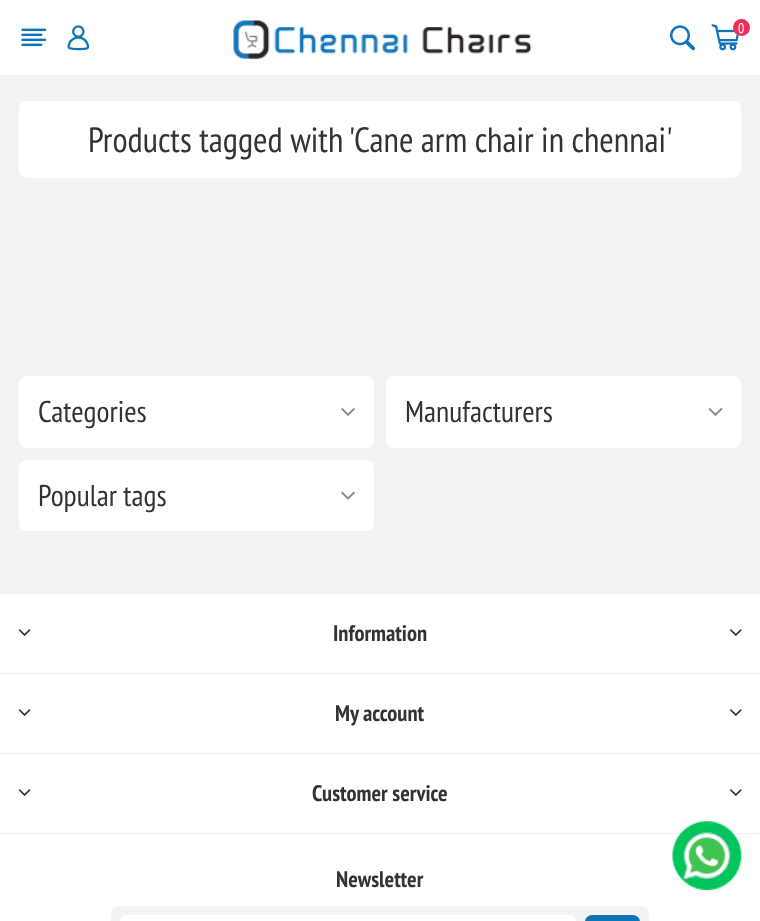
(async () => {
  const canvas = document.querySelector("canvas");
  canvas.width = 760;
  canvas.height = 921;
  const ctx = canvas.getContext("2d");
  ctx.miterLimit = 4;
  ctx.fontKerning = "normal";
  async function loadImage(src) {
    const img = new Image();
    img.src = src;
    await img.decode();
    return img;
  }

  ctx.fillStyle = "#f3f3f3";
  ctx.fillRect(0, 0, 760, 921);
  ctx.fillStyle = "#ffffff";
  ctx.fillRect(0, 0, 760, 75);
  ctx.drawImage(await loadImage("img/1.png"), 21, 28, 26, 19);
  ctx.drawImage(await loadImage("img/2.png"), 67, 25, 23, 26);
  ctx.drawImage(await loadImage("img/3.png"), 233, 20, 299, 40);
  ctx.drawImage(await loadImage("img/4.png"), 670, 25, 26, 26);
  ctx.drawImage(await loadImage("img/5.png"), 711, 24, 28, 27);
  ctx.fillStyle = "#f22d56";
  ctx.beginPath();
  ctx.arc(741.5, 27.5, 8.5, 0, Math.PI * 2);
  ctx.fill();
  ctx.fillStyle = "#ffffff";
  ctx.beginPath();
  ctx.roundRect(19, 101, 722, 77, 8);
  ctx.fill();
  ctx.beginPath();
  ctx.roundRect(19, 376, 355, 72, 8);
  ctx.fill();
  ctx.drawImage(await loadImage("img/6.png"), 341, 408, 14, 8);
  ctx.beginPath();
  ctx.roundRect(386, 376, 355, 72, 8);
  ctx.fill();
  ctx.drawImage(await loadImage("img/7.png"), 708, 408, 15, 8);
  ctx.beginPath();
  ctx.roundRect(19, 460, 355, 71, 8);
  ctx.fill();
  ctx.drawImage(await loadImage("img/8.png"), 341, 491, 14, 9);
  ctx.fillRect(0, 594, 760, 327);
  ctx.fillStyle = "#eeeeee";
  ctx.fillRect(0, 673, 760, 1);
  ctx.drawImage(await loadImage("img/9.png"), 18, 629, 13, 7);
  ctx.drawImage(await loadImage("img/10.png"), 730, 629, 12, 7);
  ctx.fillRect(0, 753, 760, 1);
  ctx.drawImage(await loadImage("img/9.png"), 18, 709, 13, 7);
  ctx.drawImage(await loadImage("img/10.png"), 730, 709, 12, 7);
  ctx.fillRect(0, 833, 760, 1);
  ctx.drawImage(await loadImage("img/9.png"), 18, 789, 13, 7);
  ctx.drawImage(await loadImage("img/10.png"), 730, 789, 12, 7);
  ctx.fillStyle = "#f3f3f3";
  ctx.beginPath();
  ctx.roundRect(111, 906, 538, 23, 8);
  ctx.fill();
  ctx.fillStyle = "#ffffff";
  ctx.beginPath();
  ctx.roundRect(120, 915, 456, 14, 8);
  ctx.fill();
  ctx.fillStyle = "#1074ba";
  ctx.beginPath();
  ctx.roundRect(585, 915, 55, 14, 8);
  ctx.fill();
  ctx.drawImage(await loadImage("img/11.png"), 672, 821, 70, 69);
  ctx.font = "14px PT Sans Narrow";
  ctx.fillStyle = "#ffffff";
  ctx.fillText("0", 738, 33);
  ctx.font = "35px PT Sans Narrow";
  ctx.fillStyle = "#333333";
  ctx.fillText("Products tagged with 'Cane arm chair in chennai'", 88, 152);
  ctx.font = "30px PT Sans Narrow";
  for (const [text, x, y] of [
    ["Categories", 38, 422],
    ["Manufacturers", 405, 422],
    ["Popular tags", 38, 506],
  ]) {
    ctx.fillText(text, x, y);
  }
  ctx.font = "bold 22.5px PT Sans Narrow";
  for (const [text, x, y] of [
    ["Information", 333, 641],
    ["My account", 335, 721],
    ["Customer service", 312, 801],
    ["Newsletter", 336, 887],
  ]) {
    ctx.fillText(text, x, y);
  }
})();
